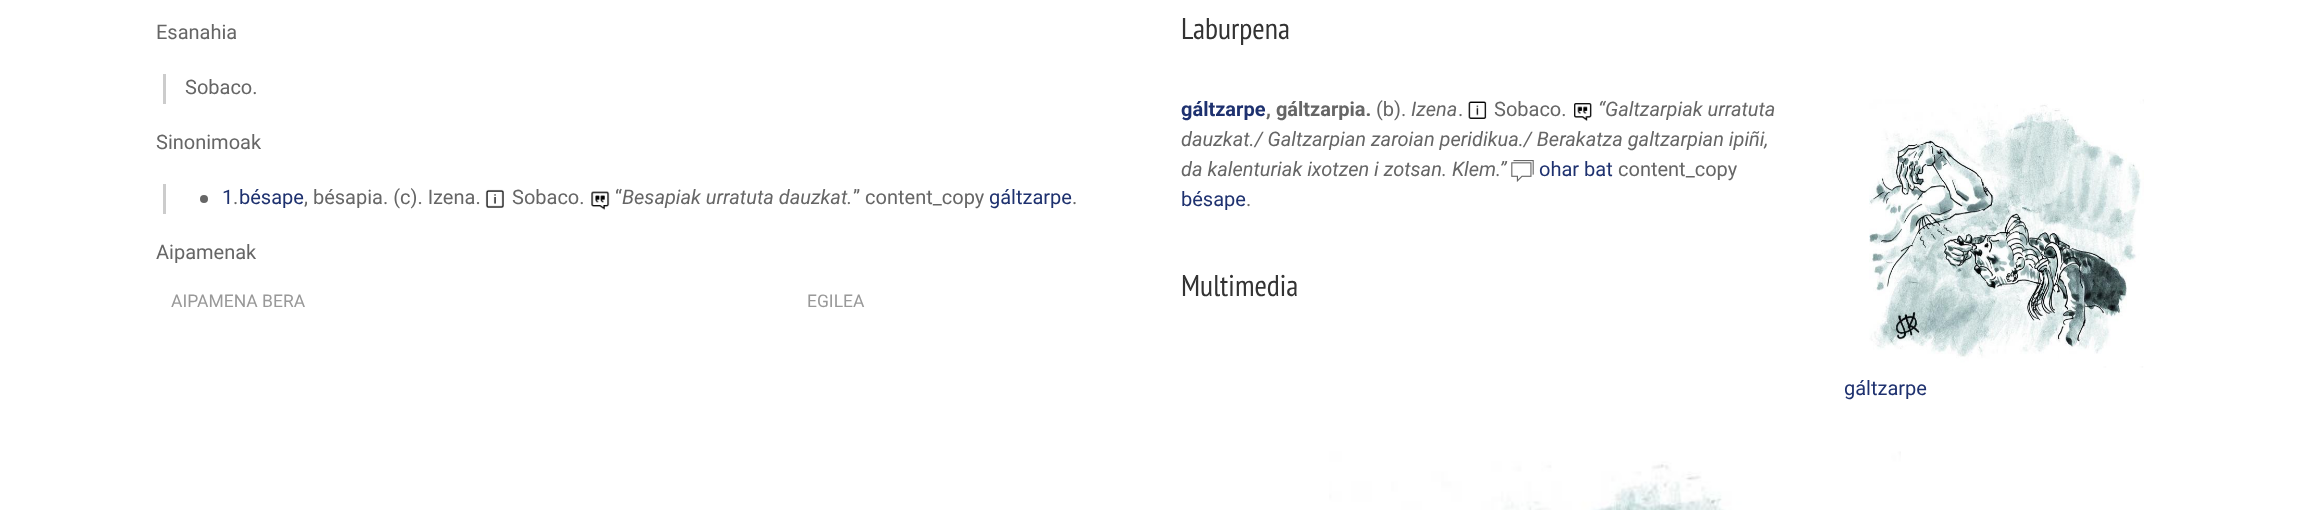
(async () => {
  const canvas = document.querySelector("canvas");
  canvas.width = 2312;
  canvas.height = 510;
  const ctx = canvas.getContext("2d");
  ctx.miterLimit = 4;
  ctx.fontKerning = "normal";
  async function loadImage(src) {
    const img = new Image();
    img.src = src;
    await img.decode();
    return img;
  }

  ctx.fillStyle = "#ffffff";
  ctx.fillRect(0, 0, 2312, 510);
  ctx.fillStyle = "#cccccc";
  ctx.fillRect(163, 74, 3, 30);
  ctx.fillRect(163, 184, 3, 30);
  ctx.fillStyle = "#666666";
  ctx.beginPath();
  ctx.arc(204, 199, 4, 0, Math.PI * 2);
  ctx.fill();
  ctx.drawImage(await loadImage("img/1.png"), 485, 189, 19, 19);
  ctx.drawImage(await loadImage("img/2.png"), 591, 191, 19, 19);
  ctx.drawImage(await loadImage("img/3.png"), 1468, 101, 19, 18);
  ctx.drawImage(await loadImage("img/4.png"), 1574, 103, 18, 18);
  ctx.drawImage(await loadImage("img/5.png"), 1511, 160, 23, 22);
  ctx.drawImage(await loadImage("img/6.png"), 1869, 99, 275, 269);
  ctx.drawImage(await loadImage("img/7.png"), 1329, 451, 572, 59);
  ctx.font = "20px Roboto";
  for (const [text, x, y] of [
    ["Esanahia", 156, 39],
    ["Sobaco.", 185, 94],
    ["Sinonimoak", 156, 149],
  ]) {
    ctx.fillText(text, x, y);
  }
  ctx.fillStyle = "#1e316f";
  ctx.fillText("1", 222, 204);
  ctx.fillStyle = "#666666";
  ctx.fillText(".", 233, 204);
  ctx.fillStyle = "#1e316f";
  ctx.fillText("bésape", 239, 204);
  ctx.fillStyle = "#666666";
  for (const [text, x, y] of [
    [", bésapia. (c). Izena.", 304, 204],
    ["Sobaco.", 512, 204],
    ["“", 615, 204],
  ]) {
    ctx.fillText(text, x, y);
  }
  ctx.font = "italic 20px Roboto";
  ctx.fillText("Besapiak urratuta dauzkat.", 622, 204);
  ctx.font = "20px Roboto";
  ctx.fillText("” content_copy", 853, 204);
  ctx.fillStyle = "#1e316f";
  ctx.fillText("gáltzarpe", 989, 204);
  ctx.fillStyle = "#666666";
  ctx.fillText(".", 1072, 204);
  ctx.fillText("Aipamenak", 156, 259);
  ctx.font = "17.5px Roboto";
  ctx.fillStyle = "#999999";
  ctx.fillText("AIPAMENA BERA", 171, 307);
  ctx.fillText("EGILEA", 807, 307);
  ctx.font = "30px PT Sans Narrow";
  ctx.fillStyle = "#333333";
  ctx.fillText("Laburpena", 1181, 39);
  ctx.font = "bold 20px Roboto";
  ctx.fillStyle = "#1e316f";
  ctx.fillText("gáltzarpe", 1181, 116);
  ctx.fillStyle = "#666666";
  ctx.fillText(", gáltzarpia.", 1266, 116);
  ctx.font = "20px Roboto";
  ctx.fillText("(b).", 1376, 116);
  ctx.font = "italic 20px Roboto";
  ctx.fillText("Izena", 1411, 116);
  ctx.font = "20px Roboto";
  ctx.fillText(".", 1458, 116);
  ctx.fillText("Sobaco.", 1494, 116);
  ctx.font = "italic 20px Roboto";
  for (const [text, x, y] of [
    ["“Galtzarpiak urratuta", 1598, 116],
    ["dauzkat./ Galtzarpian zaroian peridikua./ Berakatza galtzarpian ipiñi,", 1181, 146],
    ["da kalenturiak ixotzen i zotsan. Klem.”", 1181, 176],
  ]) {
    ctx.fillText(text, x, y);
  }
  ctx.font = "20px Roboto";
  ctx.fillStyle = "#1e316f";
  ctx.fillText("ohar bat", 1539, 176);
  ctx.fillStyle = "#666666";
  ctx.fillText("content_copy", 1618, 176);
  ctx.fillStyle = "#1e316f";
  ctx.fillText("bésape", 1181, 206);
  ctx.fillStyle = "#666666";
  ctx.fillText(".", 1246, 206);
  ctx.fillStyle = "#1e316f";
  ctx.fillText("gáltzarpe", 1844, 395);
  ctx.font = "30px PT Sans Narrow";
  ctx.fillStyle = "#333333";
  ctx.fillText("Multimedia", 1181, 296);
})();
